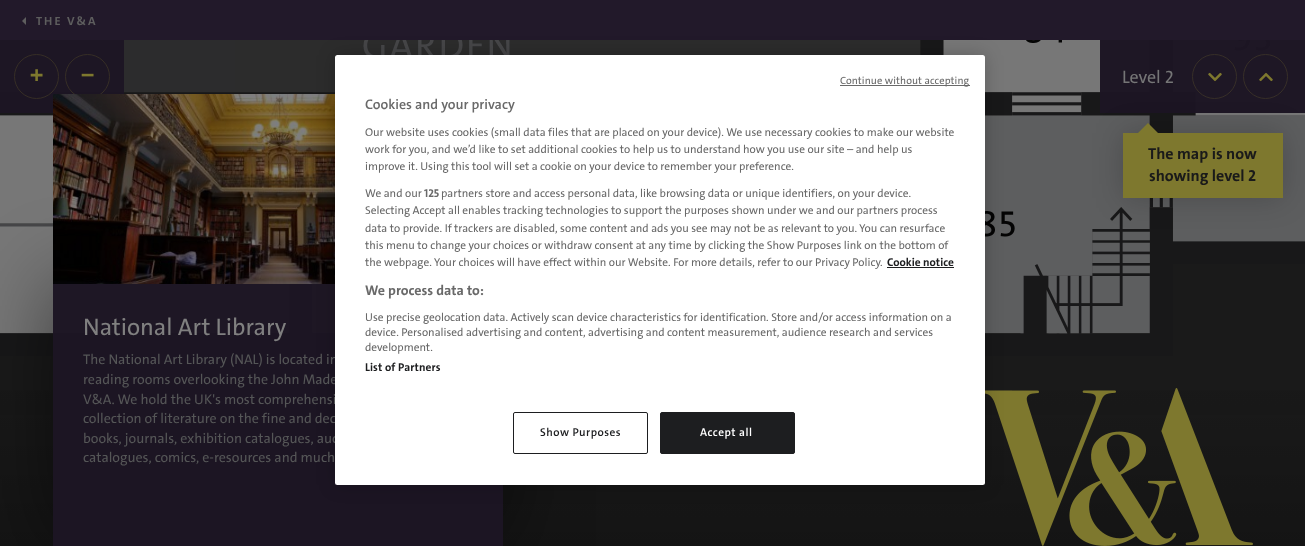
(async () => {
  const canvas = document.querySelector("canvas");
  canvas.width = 1305;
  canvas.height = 546;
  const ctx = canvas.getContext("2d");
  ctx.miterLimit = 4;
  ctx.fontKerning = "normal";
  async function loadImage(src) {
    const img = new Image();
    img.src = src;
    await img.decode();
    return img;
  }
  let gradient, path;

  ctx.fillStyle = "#2c2c2d";
  ctx.fillRect(0, 0, 1305, 546);
  ctx.fillStyle = "#22192a";
  ctx.fillRect(0, 0, 1305, 40);
  ctx.fillStyle = "#5e5e5e";
  path = new Path2D("M26 17V25L22 21Z");
  ctx.fill(path);
  ctx.drawImage(await loadImage("img/1.png"), 0, 92, 235, 67);
  ctx.drawImage(await loadImage("img/2.png"), 235, 40, 256, 54);
  ctx.drawImage(await loadImage("img/3.png"), 491, 40, 256, 15);
  ctx.drawImage(await loadImage("img/4.png"), 747, 40, 256, 119);
  ctx.drawImage(await loadImage("img/5.png"), 1003, 40, 256, 119);
  ctx.drawImage(await loadImage("img/6.png"), 1259, 40, 46, 119);
  ctx.drawImage(await loadImage("img/7.png"), 0, 159, 235, 256);
  ctx.drawImage(await loadImage("img/8.png"), 235, 284, 100, 131);
  ctx.drawImage(await loadImage("img/9.png"), 985, 159, 18, 256);
  ctx.drawImage(await loadImage("img/10.png"), 1003, 159, 256, 256);
  ctx.drawImage(await loadImage("img/11.png"), 1259, 159, 46, 256);
  for (const [x, y, w, h, color] of [
    [0, 415, 491, 131, "#1b1b1b"],
    [491, 485, 256, 61, "#1b1b1b"],
    [747, 415, 558, 131, "#1b1b1b"],
  ]) {
    ctx.fillStyle = color;
    ctx.fillRect(x, y, w, h);
  }
  ctx.fillStyle = "rgba(126, 120, 46, 0.8)";
  path = new Path2D("M645 114V137H622V114H312V332H622V311H645V332H943V114Z");
  ctx.fill(path, "evenodd");
  ctx.fillStyle = "rgba(29, 21, 36, 0.98)";
  ctx.fillRect(0, 40, 124, 73);
  ctx.beginPath();
  ctx.arc(36.5, 76.5, 22, 0, Math.PI * 2);
  ctx.strokeStyle = "#362e26";
  ctx.stroke();
  ctx.beginPath();
  ctx.arc(87.5, 76.5, 22, 0, Math.PI * 2);
  ctx.stroke();
  ctx.fillRect(1100, 40, 205, 73);
  ctx.beginPath();
  ctx.arc(1214.5, 76.5, 22, 0, Math.PI * 2);
  ctx.strokeStyle = "#372f28";
  ctx.stroke();
  ctx.drawImage(await loadImage("img/12.png"), 1208, 72, 14, 10);
  ctx.beginPath();
  ctx.arc(1265.5, 76.5, 22, 0, Math.PI * 2);
  ctx.stroke();
  ctx.drawImage(await loadImage("img/13.png"), 1259, 72, 14, 10);
  ctx.fillStyle = "rgba(0, 0, 0, 0.2)";
  ctx.filter = "blur(15px)";
  ctx.beginPath();
  ctx.rect(1123, 133, 160, 65);
  ctx.fill();
  ctx.filter = "none";
  ctx.fillStyle = "#7e782e";
  ctx.fillRect(1123, 133, 160, 65);
  path = new Path2D("M1163 138H1133L1148 123Z");
  ctx.fill(path);
  gradient = ctx.createLinearGradient(653, 346, 653, 546);
  gradient.addColorStop(0, "rgba(0, 0, 0, 0)");
  gradient.addColorStop(1, "rgba(0, 0, 0, 0.26)");
  ctx.fillStyle = gradient;
  ctx.fillRect(0, 390, 1305, 156);
  ctx.save();
  path = new Path2D("M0 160H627V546H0ZM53 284H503V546H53Z");
  ctx.clip(path, "evenodd");
  ctx.fillStyle = "rgba(0, 0, 0, 0.5)";
  ctx.filter = "blur(41px)";
  ctx.beginPath();
  ctx.rect(53, 284, 450, 262);
  ctx.fill();
  ctx.filter = "none";
  ctx.restore();
  ctx.fillStyle = "rgba(29, 21, 36, 0.98)";
  ctx.fillRect(53, 284, 450, 262);
  ctx.drawImage(await loadImage("img/14.png"), 53, 94, 282, 190);
  ctx.drawImage(await loadImage("img/15.png"), 985, 388, 268, 158);
  ctx.fillStyle = "rgba(0, 0, 0, 0.2)";
  ctx.filter = "blur(9px)";
  ctx.beginPath();
  ctx.roundRect(335, 55, 650, 430, 2.5);
  ctx.fill();
  ctx.filter = "none";
  ctx.letterSpacing = "2px";
  ctx.font = "bold 12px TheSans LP";
  ctx.fillStyle = "#5e5e5e";
  ctx.fillText("THE V&A", 36, 25);
  ctx.letterSpacing = "0px";
  ctx.font = "bold 22px DejaVu Sans Mono";
  ctx.fillStyle = "#7e782e";
  ctx.fillText("+", 30, 82);
  ctx.fillText("−", 81, 82);
  ctx.font = "18px TheSans LP";
  ctx.fillStyle = "#757576";
  ctx.fillText("Level 2", 1122, 83);
  ctx.font = "bold 16px TheSans LP";
  ctx.fillStyle = "#1a1a1a";
  ctx.fillText("The map is now", 1148, 159);
  ctx.fillText("showing level 2", 1149, 181);
  ctx.font = "24px TheSans LP";
  ctx.fillStyle = "#808080";
  ctx.fillText("National Art Library", 83, 335);
  ctx.font = "14px TheSans LP";
  ctx.fillStyle = "#555657";
  for (const [text, x, y] of [
    ["The National Art Library (NAL) is located in", 83, 364],
    ["reading rooms overlooking the John Made", 83, 384],
    ["V&A. We hold the UK's most comprehensi", 83, 404],
    ["collection of literature on the fine and dec", 83, 423],
    ["books, journals, exhibition catalogues, auc", 83, 443],
    ["catalogues, comics, e-resources and much", 83, 462],
  ]) {
    ctx.fillText(text, x, y);
  }
  ctx.fillStyle = "#ffffff";
  ctx.beginPath();
  ctx.roundRect(335, 55, 650, 430, 2.5);
  ctx.fill();
  ctx.fillStyle = "#696969";
  ctx.fillRect(840, 85, 130, 1);
  ctx.letterSpacing = "0.1px";
  ctx.font = "10.5px TheSans LP";
  ctx.fillText("Continue without accepting", 840, 84);
  ctx.letterSpacing = "0px";
  ctx.font = "600 14px TheSans LP";
  ctx.fillText("Cookies and your privacy", 365, 109);
  ctx.font = "11.38px TheSans LP";
  for (const [text, x, y] of [
    ["Our website uses cookies (small data files that are placed on your device). We use necessary cookies to make our website", 365, 136],
    ["work for you, and we’d like to set additional cookies to help us to understand how you use our site – and help us", 365, 153],
    ["improve it. Using this tool will set a cookie on your device to remember your preference.", 365, 170],
    ["We and our", 365, 197],
  ]) {
    ctx.fillText(text, x, y);
  }
  ctx.font = "bold 11.38px TheSans LP";
  ctx.fillText("125", 424, 197);
  ctx.font = "11.38px TheSans LP";
  for (const [text, x, y] of [
    ["partners store and access personal data, like browsing data or unique identifiers, on your device.", 441, 197],
    ["Selecting Accept all enables tracking technologies to support the purposes shown under we and our partners process", 365, 214],
    ["data to provide. If trackers are disabled, some content and ads you see may not be as relevant to you. You can resurface", 365, 232],
    ["this menu to change your choices or withdraw consent at any time by clicking the Show Purposes link on the bottom of", 365, 249],
    ["the webpage. Your choices will have effect within our Website. For more details, refer to our Privacy Policy.", 365, 266],
  ]) {
    ctx.fillText(text, x, y);
  }
  ctx.font = "bold 11.38px TheSans LP";
  ctx.fillStyle = "#1d1e20";
  ctx.fillText("Cookie notice", 887, 266);
  ctx.fillRect(887, 267, 67, 1);
  ctx.font = "bold 14px TheSans LP";
  ctx.fillStyle = "#696969";
  ctx.fillText("We process data to:", 365, 295);
  ctx.font = "11.38px TheSans LP";
  for (const [text, x, y] of [
    ["Use precise geolocation data. Actively scan device characteristics for identification. Store and/or access information on a", 365, 321],
    ["device. Personalised advertising and content, advertising and content measurement, audience research and services", 365, 336],
    ["development.", 365, 351],
  ]) {
    ctx.fillText(text, x, y);
  }
  ctx.letterSpacing = "0.1px";
  ctx.font = "bold 11.38px TheSans LP";
  ctx.fillStyle = "#1d1e20";
  ctx.fillText("List of Partners", 365, 371);
  ctx.beginPath();
  ctx.roundRect(513.5, 412.5, 134, 41, 1.5);
  ctx.strokeStyle = "#1d1e20";
  ctx.stroke();
  ctx.letterSpacing = "0.5px";
  ctx.font = "600 11.38px TheSans LP";
  ctx.fillText("Show Purposes", 540, 436);
  ctx.beginPath();
  ctx.roundRect(660.5, 412.5, 134, 41, 1.5);
  ctx.fill();
  ctx.stroke();
  ctx.fillStyle = "#ffffff";
  ctx.fillText("Accept all", 700, 436);
})();
